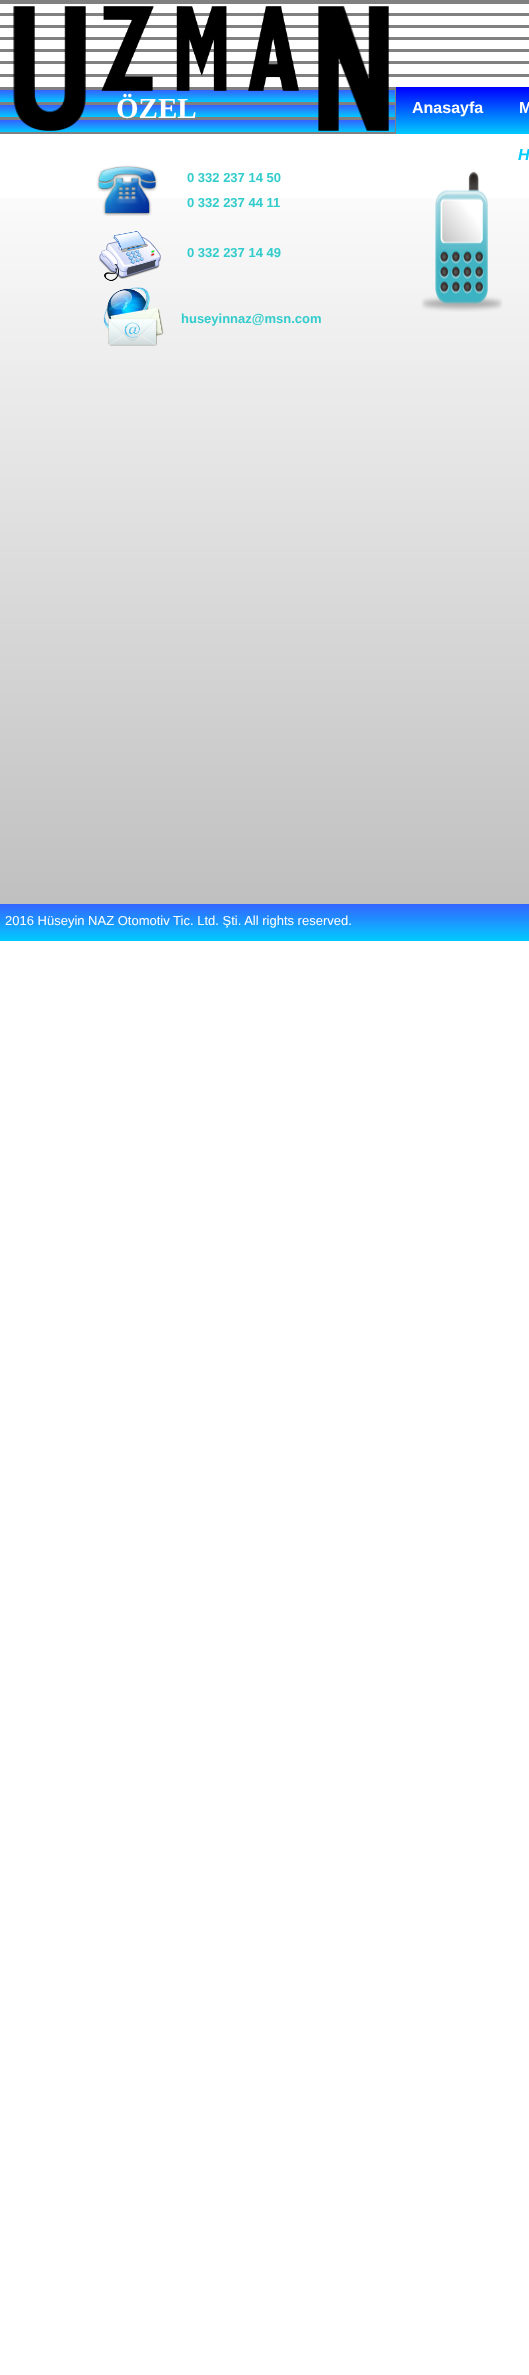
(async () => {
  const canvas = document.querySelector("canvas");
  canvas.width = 529;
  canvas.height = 2375;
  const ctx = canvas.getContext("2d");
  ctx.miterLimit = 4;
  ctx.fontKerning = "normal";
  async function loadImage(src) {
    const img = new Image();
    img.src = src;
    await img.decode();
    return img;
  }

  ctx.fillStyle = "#ffffff";
  ctx.fillRect(0, 0, 529, 2375);
  for (const [x, y, w, h, color] of [
    [0, 0, 529, 134, "#808080"],
    [0, 4, 529, 9, "#ffffff"],
    [0, 16, 529, 9, "#ffffff"],
    [0, 28, 529, 9, "#ffffff"],
    [0, 40, 529, 9, "#ffffff"],
    [0, 52, 529, 9, "#ffffff"],
    [0, 64, 529, 10, "#ffffff"],
    [0, 77, 529, 10, "#ffffff"],
  ]) {
    ctx.fillStyle = color;
    ctx.fillRect(x, y, w, h);
  }
  ctx.drawImage(await loadImage("img/6.png"), 0, 90, 395, 12);
  ctx.drawImage(await loadImage("img/6.png"), 0, 105, 395, 12);
  ctx.drawImage(await loadImage("img/6.png"), 0, 120, 395, 12);
  ctx.drawImage(await loadImage("img/1.png"), 13, 6, 73, 125);
  ctx.drawImage(await loadImage("img/2.png"), 101, 6, 53, 85);
  ctx.drawImage(await loadImage("img/3.png"), 176, 6, 51, 85);
  ctx.drawImage(await loadImage("img/4.png"), 247, 6, 53, 85);
  ctx.drawImage(await loadImage("img/5.png"), 318, 6, 71, 125);
  ctx.drawImage(await loadImage("img/7.png"), 396, 87, 133, 47);
  ctx.drawImage(await loadImage("img/10.png"), 0, 198, 529, 706);
  ctx.drawImage(await loadImage("img/8.png"), 96, 165, 62, 51);
  ctx.drawImage(await loadImage("img/9.png"), 421, 171, 82, 141);
  ctx.drawImage(await loadImage("img/11.png"), 99, 231, 62, 50);
  ctx.drawImage(await loadImage("img/12.png"), 103, 287, 61, 59);
  ctx.drawImage(await loadImage("img/13.png"), 0, 904, 529, 37);
  ctx.font = "bold 29px Liberation Serif";
  ctx.fillText("ÖZEL", 116, 118);
  ctx.font = "bold 16px Liberation Sans";
  ctx.fillText("Anasayfa", 412, 113);
  ctx.fillText("M", 519, 113);
  ctx.font = "italic bold 16px Liberation Sans";
  ctx.fillStyle = "#00ccff";
  ctx.fillText("H", 518, 160);
  ctx.font = "bold 13px Liberation Sans";
  ctx.fillStyle = "#33cccc";
  for (const [text, x, y] of [
    ["0 332 237 14 50", 187, 182],
    ["0 332 237 44 11", 187, 207],
    ["0 332 237 14 49", 187, 257],
    ["huseyinnaz@msn.com", 181, 323],
  ]) {
    ctx.fillText(text, x, y);
  }
  ctx.font = "13px Liberation Sans";
  ctx.fillStyle = "#ffffff";
  ctx.fillText("2016 Hüseyin NAZ Otomotiv Tic. Ltd. Şti. All rights reserved.", 5, 925);
})();
